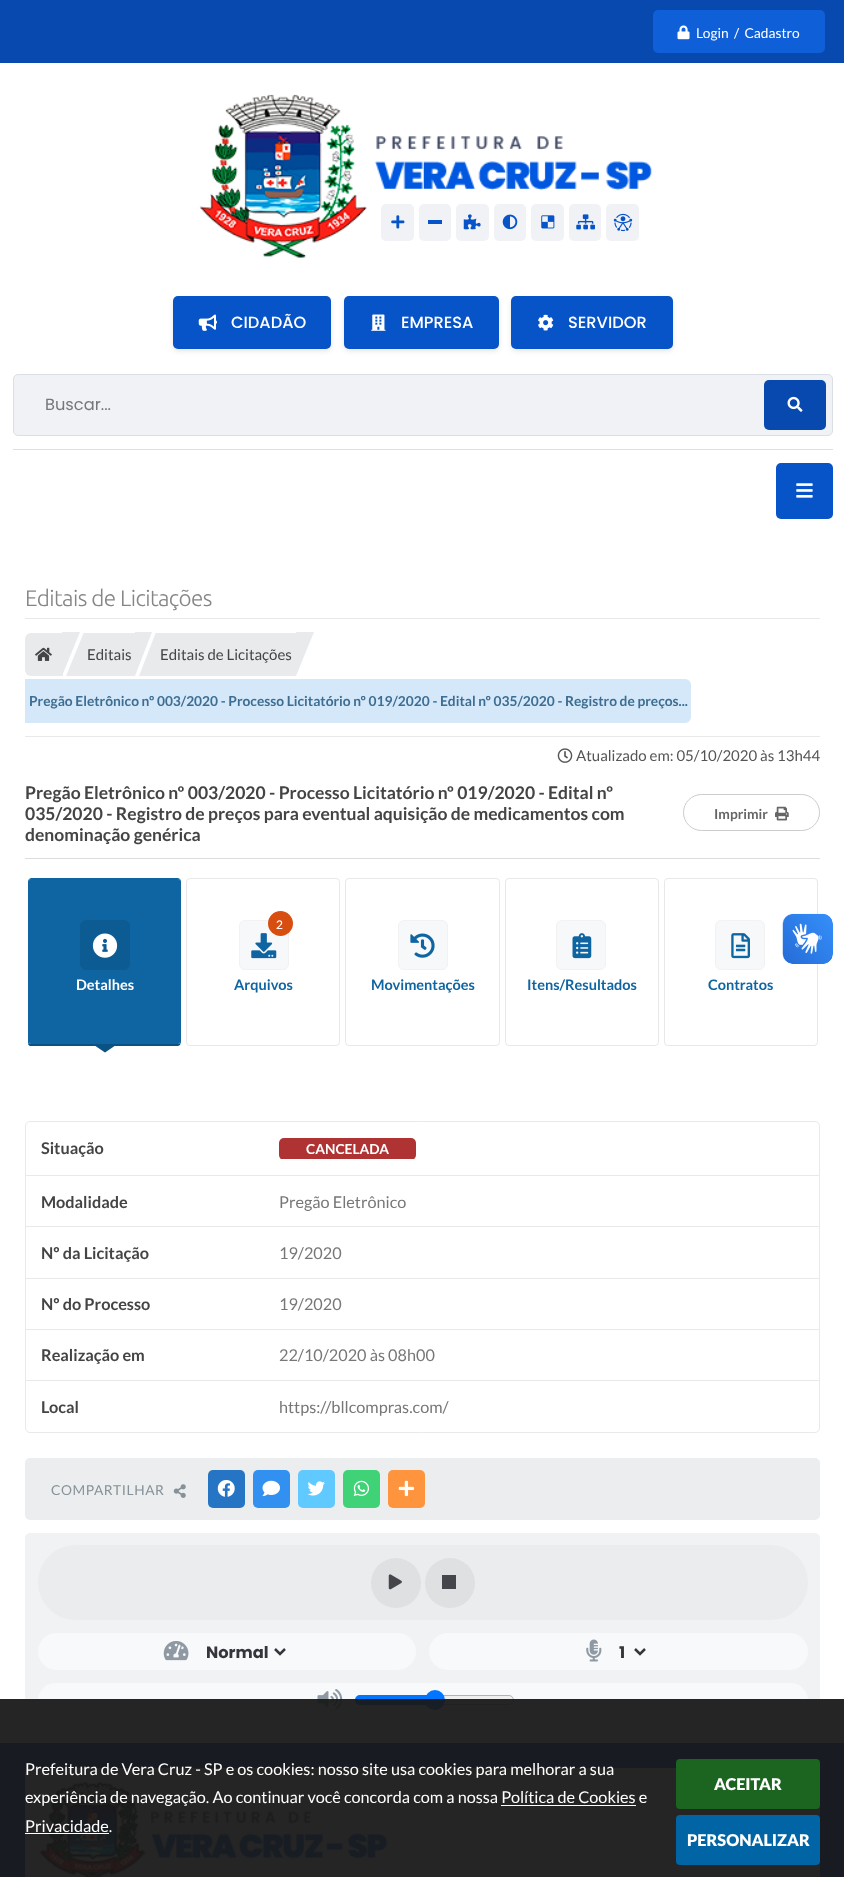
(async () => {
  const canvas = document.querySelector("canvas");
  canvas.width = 844;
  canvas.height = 1877;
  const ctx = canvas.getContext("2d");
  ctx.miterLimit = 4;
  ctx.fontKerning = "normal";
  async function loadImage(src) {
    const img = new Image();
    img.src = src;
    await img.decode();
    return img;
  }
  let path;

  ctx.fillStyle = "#ffffff";
  ctx.fillRect(0, 0, 844, 1877);
  ctx.fillStyle = "#0749ae";
  ctx.fillRect(0, 0, 844, 63);
  ctx.fillStyle = "#0f5fd9";
  ctx.beginPath();
  ctx.roundRect(653, 10, 172, 43, 5);
  ctx.fill();
  ctx.drawImage(await loadImage("img/1.png"), 677, 25, 13, 15);
  ctx.drawImage(await loadImage("img/2.png"), 199, 94, 453, 164);
  ctx.fillStyle = "#f0f2f5";
  ctx.beginPath();
  ctx.roundRect(381, 204, 33, 37, 5);
  ctx.fill();
  ctx.drawImage(await loadImage("img/3.png"), 391, 215, 14, 14);
  ctx.beginPath();
  ctx.roundRect(419, 204, 32, 37, 5);
  ctx.fill();
  ctx.fillStyle = "#0753c8";
  ctx.fillRect(428, 220, 14, 4);
  ctx.fillStyle = "#f0f2f5";
  ctx.beginPath();
  ctx.roundRect(456, 204, 33, 37, 5);
  ctx.fill();
  ctx.drawImage(await loadImage("img/4.png"), 463, 214, 18, 16);
  ctx.beginPath();
  ctx.roundRect(494, 204, 32, 37, 5);
  ctx.fill();
  ctx.drawImage(await loadImage("img/5.png"), 502, 214, 16, 16);
  ctx.beginPath();
  ctx.roundRect(531, 204, 33, 37, 5);
  ctx.fill();
  ctx.drawImage(await loadImage("img/6.png"), 541, 215, 14, 14);
  ctx.beginPath();
  ctx.roundRect(569, 204, 32, 37, 5);
  ctx.fill();
  ctx.drawImage(await loadImage("img/7.png"), 576, 214, 19, 16);
  ctx.beginPath();
  ctx.roundRect(606, 204, 33, 37, 5);
  ctx.fill();
  ctx.drawImage(await loadImage("img/8.png"), 613, 213, 20, 19);
  ctx.fillStyle = "rgba(0, 0, 0, 0.1)";
  ctx.filter = "blur(2.5px)";
  ctx.beginPath();
  ctx.roundRect(173, 299, 158, 52, 5);
  ctx.fill();
  ctx.filter = "none";
  ctx.fillStyle = "#0753c8";
  ctx.beginPath();
  ctx.roundRect(173, 296, 158, 53, 5);
  ctx.fill();
  ctx.drawImage(await loadImage("img/9.png"), 198, 314, 19, 17);
  ctx.fillStyle = "rgba(0, 0, 0, 0.1)";
  ctx.filter = "blur(2.5px)";
  ctx.beginPath();
  ctx.roundRect(344, 299, 155, 52, 5);
  ctx.fill();
  ctx.filter = "none";
  ctx.fillStyle = "#0753c8";
  ctx.beginPath();
  ctx.roundRect(344, 296, 155, 53, 5);
  ctx.fill();
  ctx.drawImage(await loadImage("img/10.png"), 371, 314, 15, 17);
  ctx.fillStyle = "rgba(0, 0, 0, 0.1)";
  ctx.filter = "blur(2.5px)";
  ctx.beginPath();
  ctx.roundRect(511, 299, 162, 52, 5);
  ctx.fill();
  ctx.filter = "none";
  ctx.fillStyle = "#0753c8";
  ctx.beginPath();
  ctx.roundRect(511, 296, 162, 53, 5);
  ctx.fill();
  ctx.drawImage(await loadImage("img/11.png"), 538, 314, 16, 17);
  ctx.fillStyle = "#f0f2f5";
  ctx.beginPath();
  ctx.roundRect(13.5, 374.5, 819, 61, 4.5);
  ctx.fill();
  ctx.strokeStyle = "#dadfe6";
  ctx.stroke();
  ctx.fillStyle = "#0749ae";
  ctx.beginPath();
  ctx.roundRect(764, 380, 62, 50, 5);
  ctx.fill();
  ctx.drawImage(await loadImage("img/12.png"), 787, 396, 16, 16);
  ctx.fillStyle = "#dadfe6";
  ctx.fillRect(13, 449, 820, 1);
  ctx.fillStyle = "#0753c8";
  ctx.beginPath();
  ctx.roundRect(776, 463, 57, 56, 5);
  ctx.fill();
  ctx.drawImage(await loadImage("img/13.png"), 796, 483, 17, 15);
  ctx.beginPath();
  ctx.roundRect(664.5, 878.5, 153, 167, 3.5);
  ctx.strokeStyle = "#e8e8e8";
  ctx.stroke();
  ctx.drawImage(await loadImage("img/14.png"), 782, 913, 51, 51);
  ctx.drawImage(await loadImage("img/15.png"), 783, 914, 50, 50);
  ctx.fillStyle = "#f0f2f4";
  ctx.beginPath();
  ctx.roundRect(25, 1533, 795, 197, 5);
  ctx.fill();
  ctx.fillStyle = "#f8f9fa";
  ctx.beginPath();
  ctx.roundRect(38, 1683, 770, 35, 17.5);
  ctx.fill();
  ctx.drawImage(await loadImage("img/33.png"), 317, 1689, 26, 21);
  ctx.fillStyle = "#efefef";
  ctx.beginPath();
  ctx.roundRect(355.5, 1695.5, 158, 9, 4.5);
  ctx.fill();
  ctx.strokeStyle = "#b2b2b2";
  ctx.stroke();
  ctx.fillStyle = "#0075ff";
  ctx.beginPath();
  ctx.roundRect(355, 1695, 80, 10, [5, 0, 0, 5]);
  ctx.fill();
  ctx.beginPath();
  ctx.arc(435, 1700, 10, 0, Math.PI * 2);
  ctx.fill();
  ctx.fillStyle = "#0749ae";
  ctx.fillRect(0, 1743, 844, 134);
  ctx.fillStyle = "#f0f2f5";
  ctx.beginPath();
  ctx.roundRect(25, 1768, 795, 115, 6);
  ctx.fill();
  ctx.drawImage(await loadImage("img/34.png"), 40, 1782, 348, 95);
  for (const [x, y, w, h, color] of [
    [0, 1699, 844, 178, "rgba(25, 25, 25, 0.95)"],
    [501, 1805, 135, 1, "#ffffff"],
    [25, 1833, 84, 1, "#ffffff"],
  ]) {
    ctx.fillStyle = color;
    ctx.fillRect(x, y, w, h);
  }
  ctx.fillStyle = "#1b6520";
  ctx.beginPath();
  ctx.roundRect(676, 1759, 144, 50, 4);
  ctx.fill();
  ctx.fillStyle = "#0164a4";
  ctx.beginPath();
  ctx.roundRect(676, 1815, 144, 50, 4);
  ctx.fill();
  ctx.fillStyle = "#e9e9e9";
  ctx.fillRect(25, 618, 795, 1);
  ctx.fillRect(25, 736, 795, 1);
  ctx.fillStyle = "#e9eaec";
  ctx.beginPath();
  ctx.roundRect(25, 633, 38, 43, [6, 0, 0, 6]);
  ctx.fill();
  ctx.drawImage(await loadImage("img/16.png"), 35, 647, 17, 14);
  path = new Path2D("M62 632H80L62 676Z");
  ctx.fill(path);
  ctx.fillRect(84, 633, 51, 43);
  path = new Path2D("M84 676H66L84 632Z");
  ctx.fill(path);
  path = new Path2D("M135 632H152L135 676Z");
  ctx.fill(path);
  ctx.fillRect(156, 633, 140, 43);
  path = new Path2D("M156 676H139L156 632Z");
  ctx.fill(path);
  path = new Path2D("M296 632H314L296 676Z");
  ctx.fill(path);
  ctx.fillStyle = "#d4e8f9";
  ctx.beginPath();
  ctx.roundRect(25, 679, 666, 44, [0, 6, 6, 0]);
  ctx.fill();
  ctx.drawImage(await loadImage("img/17.png"), 557, 748, 16, 15);
  ctx.fillStyle = "#dddddd";
  ctx.fillRect(25, 858, 795, 1);
  ctx.beginPath();
  ctx.roundRect(683.5, 794.5, 136, 36, 18);
  ctx.strokeStyle = "#cccccc";
  ctx.stroke();
  ctx.drawImage(await loadImage("img/18.png"), 775, 806, 14, 15);
  ctx.fillStyle = "#0f65a2";
  path = new Path2D("M31 879H178C179 879 180 880 180 881V1042C180 1043 179 1044 178 1044H31C30 1044 29 1043 29 1042V881C29 880 30 879 31 879Z");
  ctx.fill(path);
  path = new Path2D("M31 878L29 879L30 880L31 879H178L179 880L180 879L178 878Z");
  ctx.fill(path);
  path = new Path2D("M180 1045L181 1042V881L180 879L179 880L180 881V1043Z");
  ctx.fill(path);
  ctx.fillStyle = "#0b5284";
  path = new Path2D("M180 1045L178 1046H31C30 1046 29 1046 28 1044L29 1043L31 1044H178L180 1043Z");
  ctx.fill(path);
  ctx.fillStyle = "#0f65a2";
  path = new Path2D("M29 879L28 881V1044L29 1043V881L30 880Z");
  ctx.fill(path);
  ctx.fillStyle = "#0d5b93";
  ctx.beginPath();
  ctx.roundRect(80.5, 920.5, 49, 49, 5.5);
  ctx.fill();
  ctx.strokeStyle = "#0d5b93";
  ctx.stroke();
  ctx.drawImage(await loadImage("img/19.png"), 92, 933, 26, 25);
  ctx.fillStyle = "#0b5284";
  path = new Path2D("M92.5 1044H117.5L105 1052.5Z");
  ctx.fill(path);
  ctx.beginPath();
  ctx.roundRect(186.5, 878.5, 153, 167, 3.5);
  ctx.strokeStyle = "#e8e8e8";
  ctx.stroke();
  ctx.fillStyle = "#f7f8fa";
  ctx.beginPath();
  ctx.roundRect(239.5, 920.5, 49, 49, 5.5);
  ctx.fill();
  ctx.strokeStyle = "#f2f2f2";
  ctx.stroke();
  ctx.drawImage(await loadImage("img/20.png"), 251, 933, 26, 26);
  ctx.fillStyle = "#d84e11";
  ctx.beginPath();
  ctx.arc(280.5, 923.5, 12.5, 0, Math.PI * 2);
  ctx.fill();
  ctx.beginPath();
  ctx.roundRect(345.5, 878.5, 154, 167, 3.5);
  ctx.strokeStyle = "#e8e8e8";
  ctx.stroke();
  ctx.fillStyle = "#f7f8fa";
  ctx.beginPath();
  ctx.roundRect(398.5, 920.5, 49, 49, 5.5);
  ctx.fill();
  ctx.strokeStyle = "#f2f2f2";
  ctx.stroke();
  ctx.drawImage(await loadImage("img/21.png"), 410, 933, 25, 25);
  ctx.beginPath();
  ctx.roundRect(505.5, 878.5, 153, 167, 3.5);
  ctx.strokeStyle = "#e8e8e8";
  ctx.stroke();
  ctx.beginPath();
  ctx.roundRect(556.5, 920.5, 49, 49, 5.5);
  ctx.fill();
  ctx.strokeStyle = "#f2f2f2";
  ctx.stroke();
  ctx.drawImage(await loadImage("img/22.png"), 572, 933, 20, 26);
  ctx.beginPath();
  ctx.roundRect(715.5, 920.5, 49, 49, 5.5);
  ctx.fill();
  ctx.stroke();
  ctx.drawImage(await loadImage("img/23.png"), 731, 933, 19, 26);
  ctx.beginPath();
  ctx.roundRect(25.5, 1121.5, 794, 311, 4.5);
  ctx.strokeStyle = "#e7e9eb";
  ctx.stroke();
  ctx.fillStyle = "#b03333";
  ctx.beginPath();
  ctx.roundRect(279, 1138, 137, 22, 5);
  ctx.fill();
  for (const [x, y, w, h, color] of [
    [281, 1159, 133, 1, "#ffffff"],
    [26, 1175, 793, 1, "#e7e9eb"],
    [26, 1226, 793, 1, "#e7e9eb"],
    [26, 1278, 793, 1, "#e7e9eb"],
    [26, 1329, 793, 1, "#e7e9eb"],
    [26, 1380, 793, 1, "#e7e9eb"],
  ]) {
    ctx.fillStyle = color;
    ctx.fillRect(x, y, w, h);
  }
  ctx.fillStyle = "#ebedee";
  ctx.beginPath();
  ctx.roundRect(25, 1458, 795, 62, 5);
  ctx.fill();
  ctx.drawImage(await loadImage("img/24.png"), 173, 1484, 13, 14);
  ctx.fillStyle = "#2675c5";
  ctx.beginPath();
  ctx.roundRect(208, 1470, 37, 38, 5);
  ctx.fill();
  ctx.drawImage(await loadImage("img/25.png"), 217, 1480, 18, 17);
  ctx.fillStyle = "#3290f0";
  ctx.beginPath();
  ctx.roundRect(253, 1470, 37, 38, 5);
  ctx.fill();
  ctx.drawImage(await loadImage("img/26.png"), 262, 1480, 18, 17);
  ctx.fillStyle = "#60c9ff";
  ctx.beginPath();
  ctx.roundRect(298, 1470, 37, 38, 5);
  ctx.fill();
  ctx.drawImage(await loadImage("img/27.png"), 307, 1481, 18, 15);
  ctx.fillStyle = "#40d277";
  ctx.beginPath();
  ctx.roundRect(343, 1470, 37, 38, 5);
  ctx.fill();
  ctx.drawImage(await loadImage("img/28.png"), 353, 1480, 17, 16);
  ctx.fillStyle = "#ff943e";
  ctx.beginPath();
  ctx.roundRect(388, 1470, 37, 38, 5);
  ctx.fill();
  ctx.drawImage(await loadImage("img/29.png"), 398, 1480, 17, 17);
  ctx.fillStyle = "#eaecee";
  ctx.beginPath();
  ctx.roundRect(38, 1545, 770, 75, 37.5);
  ctx.fill();
  ctx.fillStyle = "#dee0e2";
  ctx.beginPath();
  ctx.arc(396, 1583, 25, 0, Math.PI * 2);
  ctx.fill();
  ctx.drawImage(await loadImage("img/30.png"), 388, 1574, 14, 16);
  ctx.beginPath();
  ctx.arc(450, 1583, 25, 0, Math.PI * 2);
  ctx.fill();
  ctx.fillStyle = "#45454b";
  ctx.fillRect(442, 1575, 14, 14);
  ctx.fillStyle = "#f8f9fa";
  ctx.beginPath();
  ctx.roundRect(38, 1633, 378, 37, 18.5);
  ctx.fill();
  ctx.drawImage(await loadImage("img/31.png"), 163, 1641, 26, 20);
  path = new Path2D("M275 1649L280 1654L285 1649");
  ctx.strokeStyle = "#35353b";
  ctx.lineWidth = 2.5;
  ctx.stroke(path);
  ctx.beginPath();
  ctx.roundRect(429, 1633, 379, 37, 18.5);
  ctx.fill();
  ctx.drawImage(await loadImage("img/32.png"), 586, 1639, 16, 23);
  path = new Path2D("M635 1649L640 1654L645 1649");
  ctx.stroke(path);
  ctx.font = "13.75px Lato";
  ctx.fillStyle = "#ffffff";
  ctx.fillText("Login  /  Cadastro", 696, 38);
  ctx.font = "500 16.25px Poppins";
  for (const [text, x, y] of [
    ["CIDADÃO", 231, 328],
    ["EMPRESA", 401, 328],
    ["SERVIDOR", 568, 328],
  ]) {
    ctx.fillText(text, x, y);
  }
  ctx.font = "16.25px Poppins";
  ctx.fillStyle = "#777777";
  ctx.fillText("Buscar...", 45, 410);
  ctx.font = "16.25px Lato";
  ctx.fillStyle = "#ffffff";
  for (const [text, x, y] of [
    ["Prefeitura de Vera Cruz - SP e os cookies: nosso site usa cookies para melhorar a sua", 25, 1775],
    ["experiência de navegação. Ao continuar você concorda com a nossa Política de Cookies e", 25, 1803],
    ["Privacidade.", 25, 1832],
  ]) {
    ctx.fillText(text, x, y);
  }
  ctx.font = "900 16.25px Lato";
  ctx.fillText("ACEITAR", 714, 1790);
  ctx.fillText("PERSONALIZAR", 687, 1846);
  ctx.letterSpacing = "-0.6px";
  ctx.font = "300 22.5px Ubuntu";
  ctx.fillStyle = "#868686";
  ctx.fillText("Editais de Licitações", 25, 606);
  ctx.letterSpacing = "0px";
  ctx.font = "15px Lato";
  ctx.fillStyle = "#444444";
  ctx.fillText("Editais", 87, 660);
  ctx.fillText("Editais de Licitações", 160, 660);
  ctx.font = "bold 13.75px Lato";
  ctx.fillStyle = "#3d6d92";
  ctx.fillText("Pregão Eletrônico nº 003/2020 - Processo Licitatório nº 019/2020 - Edital nº 035/2020 - Registro de preços...", 29, 706);
  ctx.font = "15px Lato";
  ctx.fillStyle = "#555555";
  ctx.fillText("Atualizado em: 05/10/2020 às 13h44", 576, 761);
  ctx.font = "bold 17.5px Lato";
  ctx.fillStyle = "#444444";
  for (const [text, x, y] of [
    ["Pregão Eletrônico nº 003/2020 - Processo Licitatório nº 019/2020 - Edital nº", 25, 799],
    ["035/2020 - Registro de preços para eventual aquisição de medicamentos com", 25, 820],
    ["denominação genérica", 25, 841],
  ]) {
    ctx.fillText(text, x, y);
  }
  ctx.font = "bold 13.75px Lato";
  ctx.fillStyle = "#666666";
  ctx.fillText("Imprimir", 714, 819);
  ctx.font = "bold 14.5px Lato";
  ctx.fillStyle = "#ffffff";
  ctx.fillText("Detalhes", 76, 990);
  ctx.font = "500 12px Lato";
  ctx.fillText("2", 276, 929);
  ctx.font = "bold 14.5px Lato";
  ctx.fillStyle = "#0f65a2";
  for (const [text, x, y] of [
    ["Arquivos", 234, 990],
    ["Movimentações", 371, 990],
    ["Itens/Resultados", 527, 990],
    ["Contratos", 708, 990],
  ]) {
    ctx.fillText(text, x, y);
  }
  ctx.font = "bold 16.25px Lato";
  ctx.fillStyle = "#444444";
  ctx.fillText("Situação", 41, 1154);
  ctx.font = "bold 13.75px Lato";
  ctx.fillStyle = "#ffffff";
  ctx.fillText("CANCELADA", 306, 1154);
  ctx.font = "bold 16.25px Lato";
  ctx.fillStyle = "#444444";
  ctx.fillText("Modalidade", 41, 1208);
  ctx.font = "16.25px Lato";
  ctx.fillStyle = "#777777";
  ctx.fillText("Pregão Eletrônico", 279, 1208);
  ctx.font = "bold 16.25px Lato";
  ctx.fillStyle = "#444444";
  ctx.fillText("Nº da Licitação", 41, 1259);
  ctx.font = "16.25px Lato";
  ctx.fillStyle = "#777777";
  ctx.fillText("19/2020", 279, 1259);
  ctx.font = "bold 16.25px Lato";
  ctx.fillStyle = "#444444";
  ctx.fillText("Nº do Processo", 41, 1310);
  ctx.font = "16.25px Lato";
  ctx.fillStyle = "#777777";
  ctx.fillText("19/2020", 279, 1310);
  ctx.font = "bold 16.25px Lato";
  ctx.fillStyle = "#444444";
  ctx.fillText("Realização em", 41, 1361);
  ctx.font = "16.25px Lato";
  ctx.fillStyle = "#777777";
  ctx.fillText("22/10/2020 às 08h00", 279, 1361);
  ctx.font = "bold 16.25px Lato";
  ctx.fillStyle = "#444444";
  ctx.fillText("Local", 41, 1413);
  ctx.font = "16.25px Lato";
  ctx.fillStyle = "#777777";
  ctx.fillText("https://bllcompras.com/", 279, 1413);
  ctx.letterSpacing = "0.6px";
  ctx.font = "13.75px Lato";
  ctx.fillStyle = "#869198";
  ctx.fillText("COMPARTILHAR", 51, 1495);
  ctx.letterSpacing = "0px";
  ctx.font = "bold 16.25px Poppins";
  ctx.fillStyle = "#35353b";
  ctx.fillText("Normal", 206, 1658);
  ctx.fillText("1", 619, 1658);
})();
